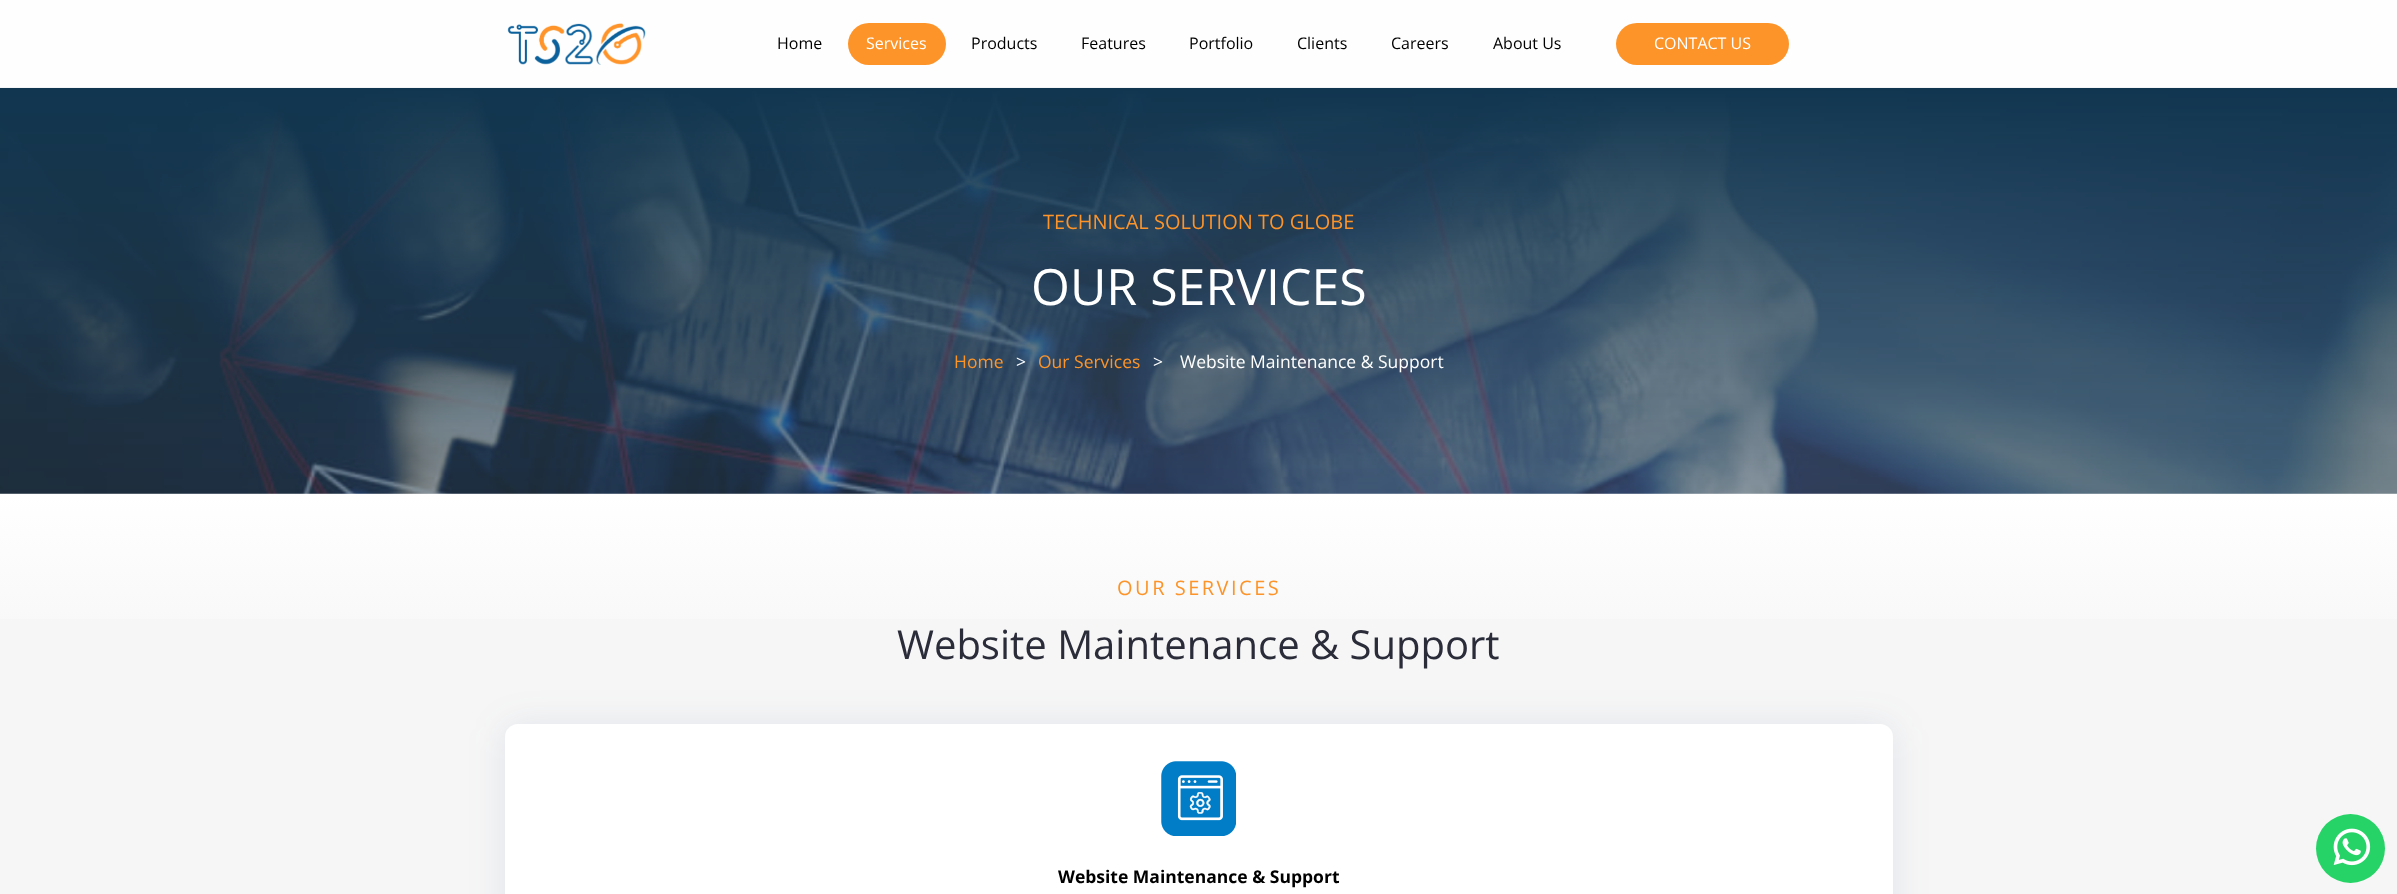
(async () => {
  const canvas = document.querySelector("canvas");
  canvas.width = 2397;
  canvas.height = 894;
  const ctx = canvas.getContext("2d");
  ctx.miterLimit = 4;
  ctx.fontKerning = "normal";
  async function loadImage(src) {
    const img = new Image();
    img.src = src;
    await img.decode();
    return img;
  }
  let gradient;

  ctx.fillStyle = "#f6f6f6";
  ctx.fillRect(0, 0, 2397, 894);
  ctx.drawImage(await loadImage("img/2.png"), 0, 87, 2397, 407);
  ctx.fillStyle = "rgba(255, 255, 255, 0.9)";
  ctx.fillRect(0, 0, 2397, 88);
  ctx.drawImage(await loadImage("img/1.png"), 507, 23, 139, 42);
  ctx.fillStyle = "#fd9429";
  ctx.beginPath();
  ctx.roundRect(848, 23, 98, 42, 21);
  ctx.fill();
  ctx.beginPath();
  ctx.roundRect(1616, 23, 173, 42, 21);
  ctx.fill();
  gradient = ctx.createLinearGradient(1199, 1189, 1199, 494);
  gradient.addColorStop(0, "#ffffff");
  gradient.addColorStop(0.25, "#f6f6f6");
  gradient.addColorStop(0.75, "#f6f6f6");
  gradient.addColorStop(1, "#ffffff");
  ctx.fillStyle = gradient;
  ctx.fillRect(0, 494, 2397, 125);
  ctx.fillStyle = "rgba(68, 88, 144, 0.12)";
  ctx.filter = "blur(18px)";
  ctx.beginPath();
  ctx.roundRect(505, 726, 1388, 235, 13);
  ctx.fill();
  ctx.filter = "none";
  ctx.fillStyle = "#ffffff";
  ctx.beginPath();
  ctx.roundRect(505, 724, 1388, 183, 13);
  ctx.fill();
  ctx.drawImage(await loadImage("img/3.png"), 1161, 761, 75, 75);
  ctx.fillStyle = "#25d366";
  ctx.beginPath();
  ctx.arc(2350.5, 848.5, 34.5, 0, Math.PI * 2);
  ctx.fill();
  ctx.drawImage(await loadImage("img/4.png"), 2333, 828, 38, 38);
  ctx.font = "16px Open Sans";
  ctx.fillStyle = "#000000";
  ctx.fillText("Home", 777, 49);
  ctx.fillStyle = "#ffffff";
  ctx.fillText("Services", 866, 49);
  ctx.fillStyle = "#000000";
  for (const [text, x, y] of [
    ["Products", 971, 49],
    ["Features", 1081, 49],
    ["Portfolio", 1189, 49],
    ["Clients", 1297, 49],
    ["Careers", 1391, 49],
    ["About Us", 1493, 49],
  ]) {
    ctx.fillText(text, x, y);
  }
  ctx.fillStyle = "#ffffff";
  ctx.fillText("CONTACT US", 1654, 49);
  ctx.font = "20px Open Sans";
  ctx.fillStyle = "#fd9429";
  ctx.fillText("TECHNICAL SOLUTION TO GLOBE", 1043, 229);
  ctx.font = "50px Open Sans";
  ctx.fillStyle = "#ffffff";
  ctx.fillText("OUR SERVICES", 1031, 305);
  ctx.font = "17.5px Open Sans";
  ctx.fillStyle = "#fd9429";
  ctx.fillText("Home", 954, 368);
  ctx.fillStyle = "#ffffff";
  ctx.fillText(">", 1016, 368);
  ctx.fillStyle = "#fd9429";
  ctx.fillText("Our Services", 1038, 368);
  ctx.fillStyle = "#ffffff";
  ctx.fillText(">", 1153, 368);
  ctx.fillText("Website Maintenance & Support", 1180, 368);
  ctx.letterSpacing = "2.5px";
  ctx.font = "20px Open Sans";
  ctx.fillStyle = "#fd9429";
  ctx.fillText("OUR SERVICES", 1117, 595);
  ctx.letterSpacing = "0px";
  ctx.font = "40px Open Sans";
  ctx.fillStyle = "#2a2c39";
  ctx.fillText("Website Maintenance & Support", 897, 659);
  ctx.font = "bold 17.5px Open Sans";
  ctx.fillStyle = "#000000";
  ctx.fillText("Website Maintenance & Support", 1058, 883);
})();
